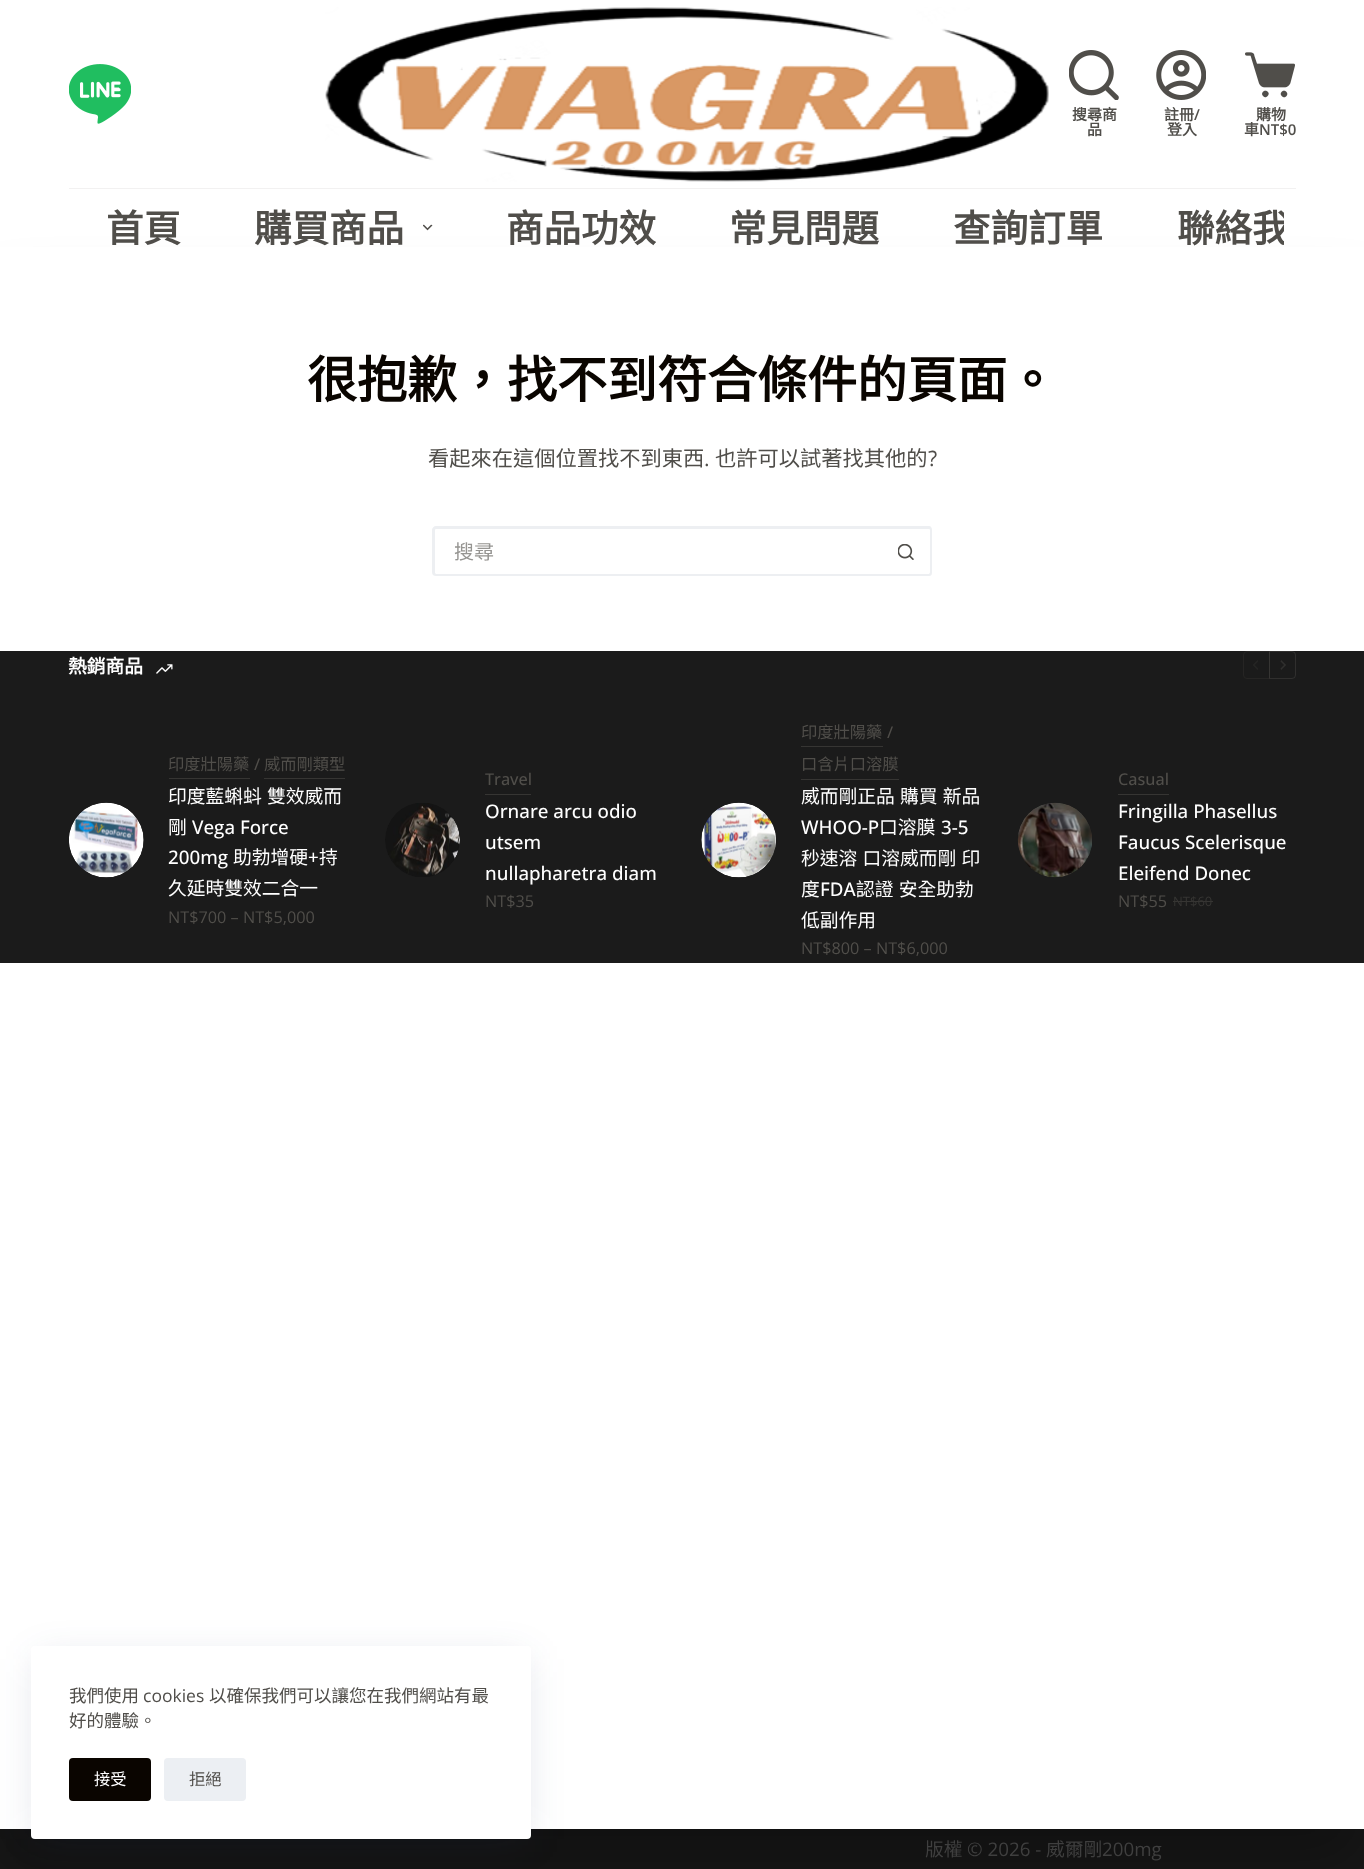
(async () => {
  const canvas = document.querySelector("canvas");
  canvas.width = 1364;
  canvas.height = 1869;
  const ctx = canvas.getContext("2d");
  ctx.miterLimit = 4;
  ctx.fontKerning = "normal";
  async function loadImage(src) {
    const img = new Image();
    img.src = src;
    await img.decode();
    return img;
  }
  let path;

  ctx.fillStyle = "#ffffff";
  ctx.fillRect(0, 0, 1364, 1869);
  ctx.drawImage(await loadImage("img/1.png"), 69, 64, 62, 60);
  ctx.drawImage(await loadImage("img/2.png"), 325, 7, 724, 175);
  ctx.drawImage(await loadImage("img/3.png"), 1069, 50, 50, 50);
  ctx.drawImage(await loadImage("img/4.png"), 1156, 50, 50, 50);
  ctx.drawImage(await loadImage("img/5.png"), 1245, 52, 50, 46);
  ctx.fillStyle = "#f2f1f1";
  ctx.fillRect(69, 188, 1227, 1);
  ctx.fillStyle = "#181818";
  ctx.fillRect(0, 1829, 1364, 40);
  ctx.fillStyle = "rgba(0, 0, 0, 0.3)";
  ctx.filter = "blur(31px)";
  ctx.beginPath();
  ctx.rect(0, 304, 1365, 1562);
  ctx.fill();
  ctx.filter = "none";
  ctx.drawImage(await loadImage("img/6.png"), 423, 224, 10, 7);
  ctx.fillStyle = "#ffffff";
  ctx.fillRect(0, 247, 1364, 1582);
  ctx.fillStyle = "#edeff2";
  path = new Path2D("M436 526H882V576H436C434 576 432 575 432 572V530C432 528 434 526 436 526ZM436 529H882V574H436L435 573V530C435 529 436 529 436 529Z");
  ctx.fill(path, "evenodd");
  path = new Path2D("M882 526H929C931 526 932 528 932 530V572C932 575 931 576 929 576H882ZM882 529H929C929 529 930 529 930 530V572C930 573 929 574 929 574H882Z");
  ctx.fill(path, "evenodd");
  ctx.drawImage(await loadImage("img/7.png"), 898, 544, 16, 16);
  ctx.fillStyle = "#1b1b1b";
  ctx.fillRect(0, 651, 1364, 312);
  ctx.drawImage(await loadImage("img/8.png"), 156, 664, 17, 10);
  ctx.beginPath();
  ctx.roundRect(1243.5, 651.5, 26, 27, [3.5, 0, 0, 3.5]);
  ctx.strokeStyle = "#262524";
  ctx.stroke();
  ctx.drawImage(await loadImage("img/9.png"), 1253, 660, 5, 10);
  ctx.beginPath();
  ctx.roundRect(1269.5, 651.5, 26, 27, [0, 3.5, 3.5, 0]);
  ctx.strokeStyle = "rgba(80, 78, 74, 0.4)";
  ctx.stroke();
  ctx.drawImage(await loadImage("img/10.png"), 1280, 660, 6, 10);
  ctx.drawImage(await loadImage("img/11.png"), 69, 802, 75, 76);
  ctx.fillStyle = "#363533";
  ctx.fillRect(169, 778, 81, 1);
  ctx.fillRect(264, 778, 81, 1);
  ctx.drawImage(await loadImage("img/12.png"), 385, 803, 75, 74);
  ctx.fillRect(485, 794, 46, 1);
  ctx.drawImage(await loadImage("img/13.png"), 701, 802, 75, 76);
  ctx.fillRect(801, 746, 82, 1);
  ctx.fillRect(801, 779, 98, 1);
  ctx.drawImage(await loadImage("img/14.png"), 1017, 802, 75, 76);
  ctx.fillRect(1118, 794, 51, 1);
  ctx.fillRect(1173, 901, 40, 1);
  ctx.fillStyle = "rgba(34, 56, 101, 0.15)";
  ctx.filter = "blur(19px)";
  ctx.beginPath();
  ctx.rect(38, 1659, 487, 180);
  ctx.fill();
  ctx.filter = "none";
  ctx.fillStyle = "#ffffff";
  ctx.beginPath();
  ctx.roundRect(31, 1646, 500, 193, 4);
  ctx.fill();
  ctx.fillStyle = "#0a0500";
  ctx.beginPath();
  ctx.roundRect(69, 1758, 82, 43, 4);
  ctx.fill();
  ctx.fillStyle = "#eceff3";
  ctx.beginPath();
  ctx.roundRect(164, 1758, 82, 43, 4);
  ctx.fill();
  ctx.font = "bold 15px Noto Sans CJK TC";
  ctx.fillStyle = "#504e4a";
  for (const [text, x, y] of [
    ["搜尋商", 1072, 120],
    ["品", 1087, 135],
    ["註冊", 1164, 120],
  ]) {
    ctx.fillText(text, x, y);
  }
  ctx.font = "600 15px Open Sans";
  ctx.fillText("/", 1194, 120);
  ctx.font = "bold 15px Noto Sans CJK TC";
  for (const [text, x, y] of [
    ["登入", 1167, 135],
    ["購物", 1256, 120],
    ["車", 1244, 135],
  ]) {
    ctx.fillText(text, x, y);
  }
  ctx.font = "600 15px Open Sans";
  ctx.fillText("NT$0", 1259, 135);
  ctx.font = "bold 37.5px Noto Sans CJK TC";
  for (const [text, x, y] of [
    ["首頁", 106, 242],
    ["購買商品", 254, 242],
    ["商品功效", 506, 242],
    ["常見問題", 729, 242],
    ["查詢訂單", 953, 242],
  ]) {
    ctx.fillText(text, x, y);
  }
  ctx.save();
  ctx.beginPath();
  ctx.rect(81, 189, 1203, 77);
  ctx.clip();
  ctx.fillText("聯絡我", 1177, 242);
  ctx.restore();
  ctx.font = "bold 50px Noto Sans CJK TC";
  ctx.fillStyle = "#0a0500";
  ctx.fillText("很抱歉，找不到符合條件的頁面。", 307, 398);
  ctx.font = "21.25px Noto Sans CJK TC";
  ctx.fillStyle = "#504e4a";
  ctx.fillText("看起來在這個位置找不到東西", 428, 466);
  ctx.font = "21.25px Open Sans";
  ctx.fillText(".", 704, 466);
  ctx.font = "21.25px Noto Sans CJK TC";
  ctx.fillText("也許可以試著找其他的", 715, 466);
  ctx.font = "21.25px Open Sans";
  ctx.fillText("?", 928, 466);
  ctx.font = "20px Noto Sans CJK TC";
  ctx.fillStyle = "#969592";
  ctx.fillText("搜尋", 454, 559);
  ctx.font = "bold 18.75px Noto Sans CJK TC";
  ctx.fillStyle = "#ffffff";
  ctx.fillText("熱銷商品", 68, 673);
  ctx.font = "16.25px Noto Sans CJK TC";
  ctx.fillStyle = "#504e4a";
  ctx.fillText("印度壯陽藥", 168, 770);
  ctx.font = "500 16.25px Open Sans";
  ctx.fillText("/", 254, 770);
  ctx.font = "16.25px Noto Sans CJK TC";
  ctx.fillText("威而剛類型", 264, 770);
  ctx.wordSpacing = "1px";
  ctx.font = "18.75px Noto Sans CJK TC";
  ctx.fillStyle = "#ffffff";
  ctx.fillText("印度藍蝌蚪 雙效威而", 168, 803);
  ctx.wordSpacing = "0px";
  ctx.fillText("剛", 168, 834);
  ctx.font = "500 18.75px Open Sans";
  ctx.fillText("Vega Force", 192, 834);
  ctx.fillText("200mg", 168, 864);
  ctx.font = "18.75px Noto Sans CJK TC";
  ctx.fillText("助勃增硬", 233, 864);
  ctx.font = "500 18.75px Open Sans";
  ctx.fillText("+", 308, 864);
  ctx.font = "18.75px Noto Sans CJK TC";
  ctx.fillText("持", 319, 864);
  ctx.fillText("久延時雙效二合一", 168, 895);
  ctx.font = "16.25px Open Sans";
  ctx.fillStyle = "#504e4a";
  ctx.fillText("NT$700 – NT$5,000", 168, 923);
  ctx.font = "500 16.25px Open Sans";
  ctx.fillText("Travel", 485, 785);
  ctx.font = "500 18.75px Open Sans";
  ctx.fillStyle = "#ffffff";
  for (const [text, x, y] of [
    ["Ornare arcu odio", 485, 818],
    ["utsem", 485, 849],
    ["nullapharetra diam", 485, 880],
  ]) {
    ctx.fillText(text, x, y);
  }
  ctx.font = "16.25px Open Sans";
  ctx.fillStyle = "#504e4a";
  ctx.fillText("NT$35", 485, 907);
  ctx.font = "16.25px Noto Sans CJK TC";
  ctx.fillText("印度壯陽藥", 801, 738);
  ctx.font = "500 16.25px Open Sans";
  ctx.fillText("/", 887, 738);
  ctx.font = "16.25px Noto Sans CJK TC";
  ctx.fillText("口含片口溶膜", 801, 770);
  ctx.wordSpacing = "1px";
  ctx.font = "18.75px Noto Sans CJK TC";
  ctx.fillStyle = "#ffffff";
  ctx.fillText("威而剛正品 購買 新品", 801, 803);
  ctx.wordSpacing = "0px";
  ctx.font = "500 18.75px Open Sans";
  ctx.fillText("WHOO-P", 801, 834);
  ctx.font = "18.75px Noto Sans CJK TC";
  ctx.fillText("口溶膜", 879, 834);
  ctx.font = "500 18.75px Open Sans";
  ctx.fillText("3-5", 941, 834);
  ctx.wordSpacing = "1px";
  ctx.font = "18.75px Noto Sans CJK TC";
  ctx.fillText("秒速溶 口溶威而剛 印", 801, 865);
  ctx.wordSpacing = "0px";
  ctx.fillText("度", 801, 896);
  ctx.font = "500 18.75px Open Sans";
  ctx.fillText("FDA", 820, 896);
  ctx.wordSpacing = "1px";
  ctx.font = "18.75px Noto Sans CJK TC";
  ctx.fillText("認證 安全助勃", 856, 896);
  ctx.wordSpacing = "0px";
  ctx.fillText("低副作用", 801, 927);
  ctx.font = "16.25px Open Sans";
  ctx.fillStyle = "#504e4a";
  ctx.fillText("NT$800 – NT$6,000", 801, 954);
  ctx.font = "500 16.25px Open Sans";
  ctx.fillText("Casual", 1118, 785);
  ctx.font = "500 18.75px Open Sans";
  ctx.fillStyle = "#ffffff";
  for (const [text, x, y] of [
    ["Fringilla Phasellus", 1118, 818],
    ["Faucus Scelerisque", 1118, 849],
    ["Eleifend Donec", 1118, 880],
  ]) {
    ctx.fillText(text, x, y);
  }
  ctx.font = "16.25px Open Sans";
  ctx.fillStyle = "#504e4a";
  ctx.fillText("NT$55", 1118, 907);
  ctx.font = "13px Open Sans";
  ctx.fillStyle = "#363533";
  ctx.fillText("NT$60", 1173, 906);
  ctx.font = "18.75px Noto Sans CJK TC";
  ctx.fillStyle = "#3f3f3f";
  ctx.fillText("版權", 925, 1856);
  ctx.font = "18.75px Open Sans";
  ctx.fillText("© 2026 -", 967, 1856);
  ctx.font = "18.75px Noto Sans CJK TC";
  ctx.fillText("威爾剛", 1046, 1856);
  ctx.font = "18.75px Open Sans";
  ctx.fillText("200mg", 1102, 1856);
  ctx.font = "17.5px Noto Sans CJK TC";
  ctx.fillStyle = "#504e4a";
  ctx.fillText("我們使用", 69, 1702);
  ctx.font = "17.5px Open Sans";
  ctx.fillText("cookies", 143, 1702);
  ctx.font = "17.5px Noto Sans CJK TC";
  ctx.fillText("以確保我們可以讓您在我們網站有最", 209, 1702);
  ctx.fillText("好的體驗。", 69, 1727);
  ctx.font = "16.25px Noto Sans CJK TC";
  ctx.fillStyle = "#ffffff";
  ctx.fillText("接受", 94, 1785);
  ctx.fillStyle = "#504e4a";
  ctx.fillText("拒絕", 189, 1785);
})();
